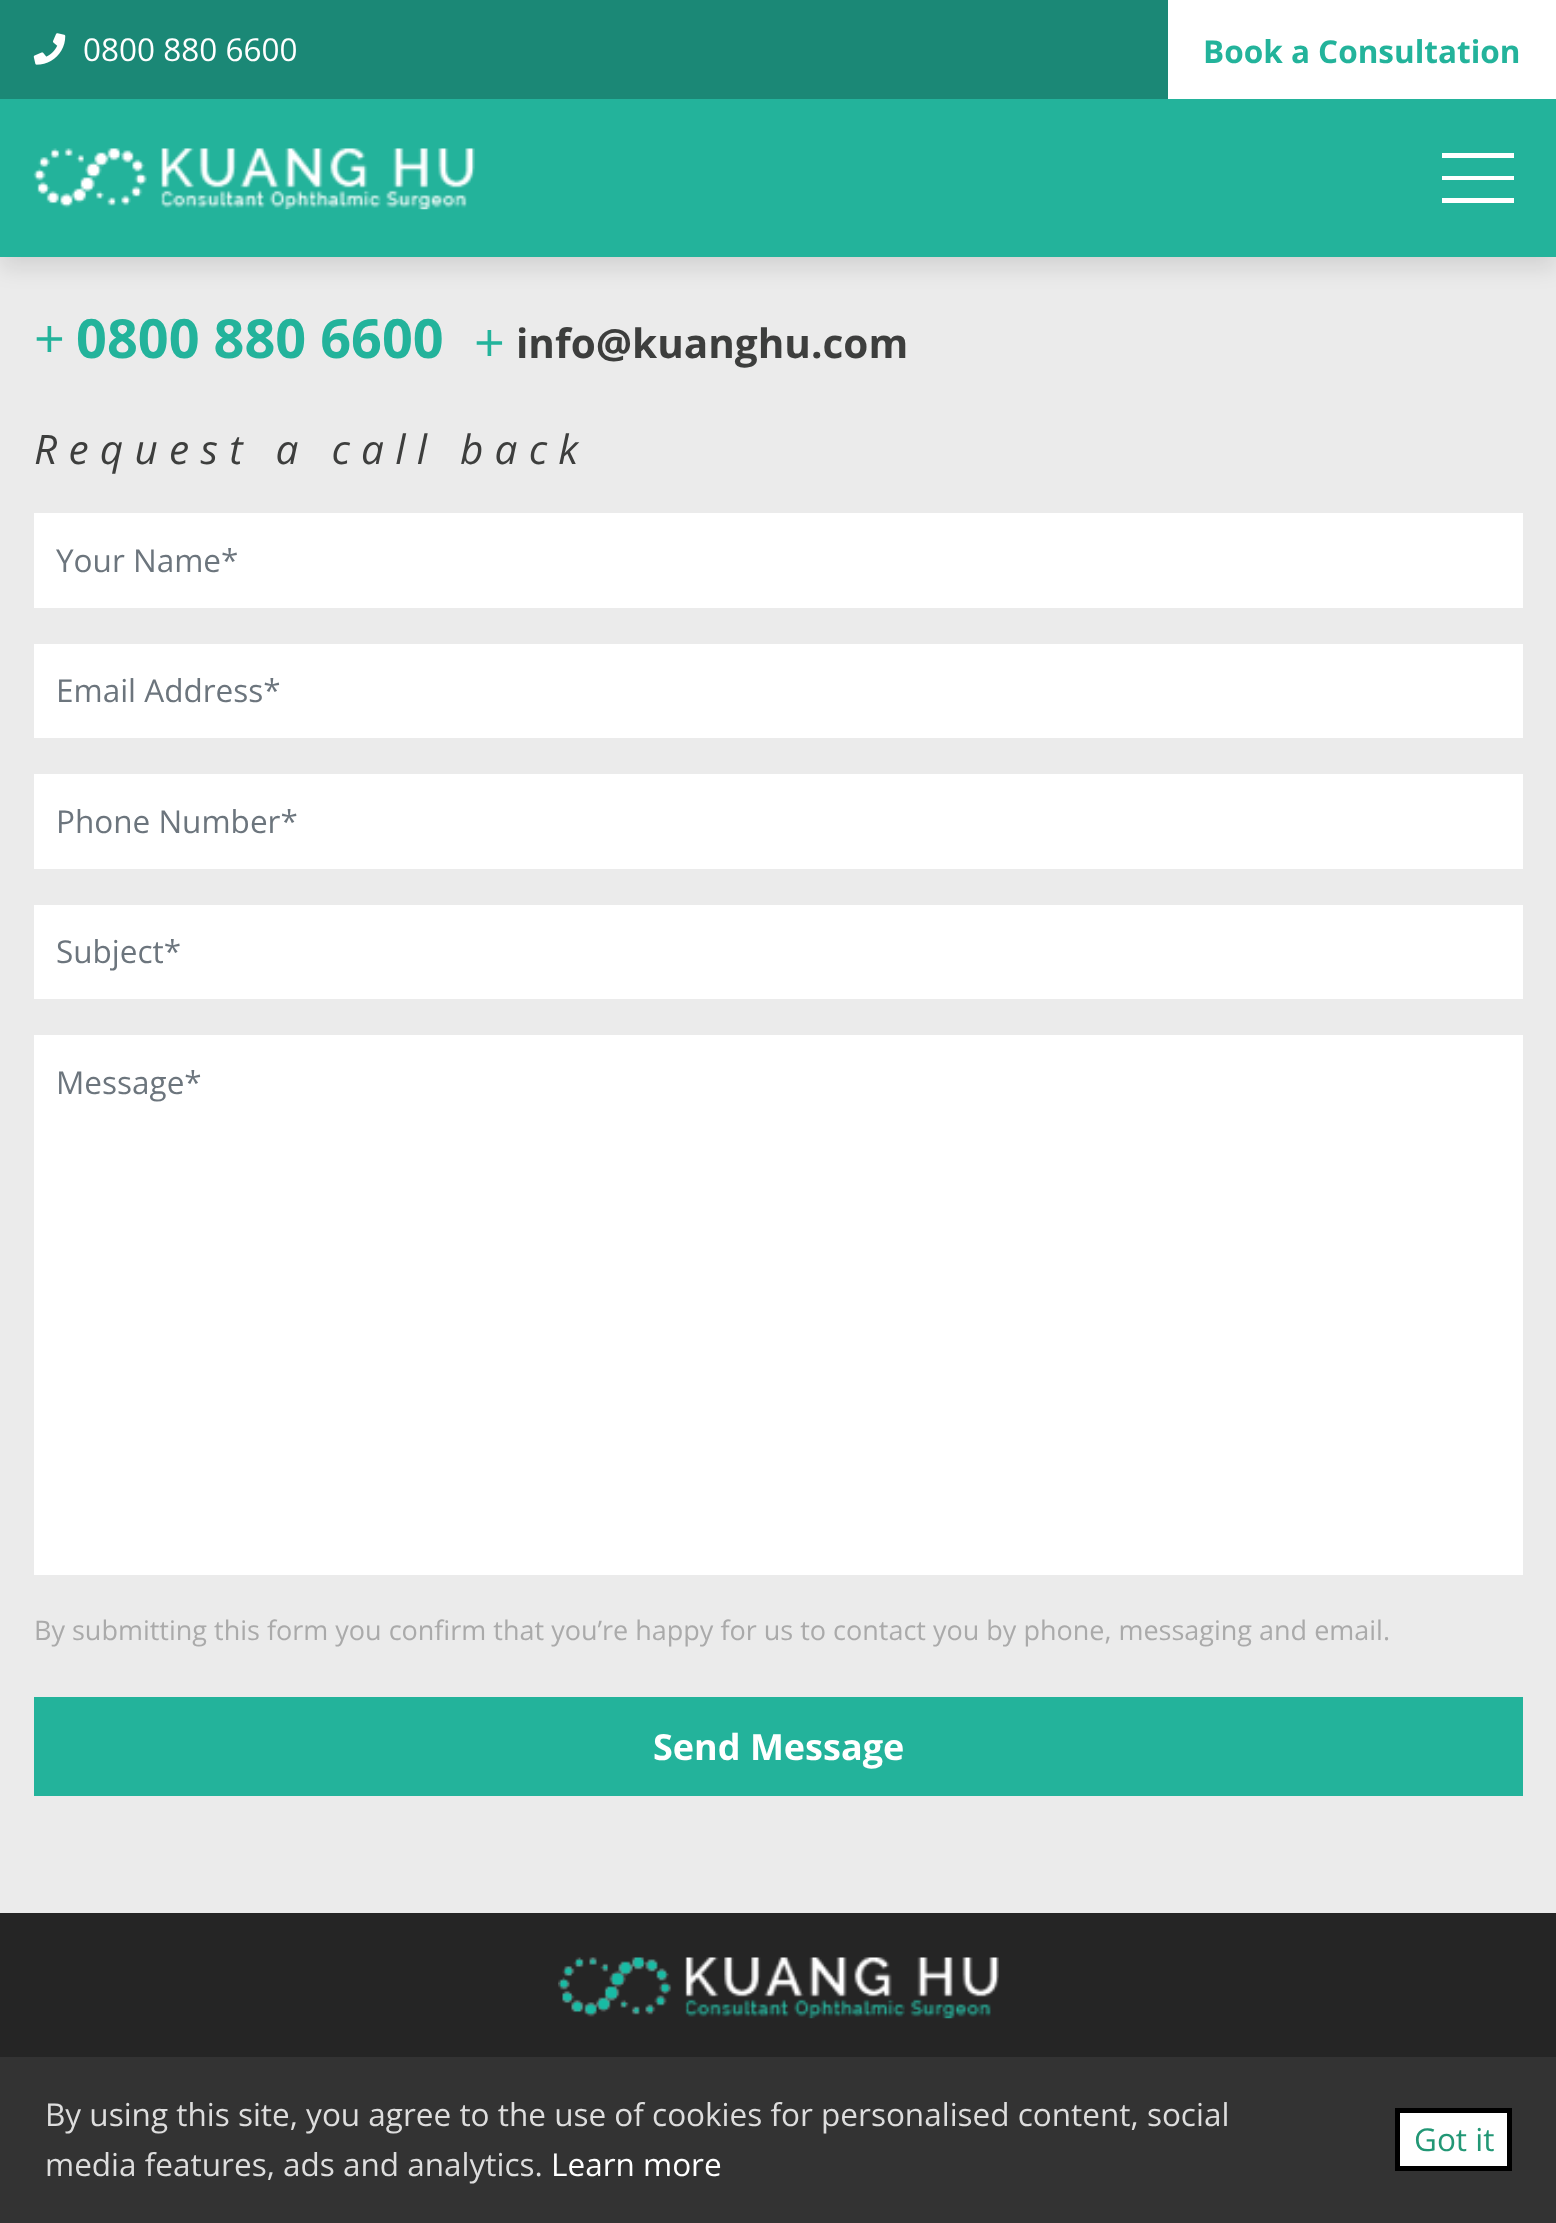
(async () => {
  const canvas = document.querySelector("canvas");
  canvas.width = 1556;
  canvas.height = 2223;
  const ctx = canvas.getContext("2d");
  ctx.miterLimit = 4;
  ctx.fontKerning = "normal";
  async function loadImage(src) {
    const img = new Image();
    img.src = src;
    await img.decode();
    return img;
  }

  ctx.fillStyle = "#252525";
  ctx.fillRect(0, 0, 1556, 2223);
  ctx.fillStyle = "#ebebeb";
  ctx.fillRect(0, 257, 1556, 1656);
  ctx.fillStyle = "rgba(0, 0, 0, 0.1)";
  ctx.filter = "blur(11px)";
  ctx.beginPath();
  ctx.rect(0, 110, 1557, 158);
  ctx.fill();
  ctx.filter = "none";
  ctx.fillStyle = "#1b8876";
  ctx.fillRect(0, 0, 1168, 99);
  ctx.drawImage(await loadImage("img/1.png"), 33, 33, 33, 32);
  ctx.fillStyle = "#ffffff";
  ctx.fillRect(1168, 0, 388, 99);
  ctx.fillStyle = "#23b39b";
  ctx.fillRect(0, 99, 1556, 158);
  ctx.drawImage(await loadImage("img/2.png"), 33, 148, 442, 62);
  for (const [x, y, w, h, color] of [
    [1442, 153, 72, 5, "#ffffff"],
    [1442, 176, 72, 4, "#ffffff"],
    [1442, 198, 72, 5, "#ffffff"],
    [34, 513, 1489, 95, "#ffffff"],
    [34, 644, 1489, 94, "#ffffff"],
    [34, 774, 1489, 95, "#ffffff"],
    [34, 905, 1489, 94, "#ffffff"],
    [34, 1035, 1489, 540, "#ffffff"],
    [34, 1697, 1489, 99, "#23b39b"],
  ]) {
    ctx.fillStyle = color;
    ctx.fillRect(x, y, w, h);
  }
  ctx.drawImage(await loadImage("img/3.png"), 558, 1957, 441, 62);
  ctx.fillStyle = "#333333";
  ctx.fillRect(0, 2057, 1556, 166);
  ctx.fillStyle = "#ffffff";
  ctx.beginPath();
  ctx.rect(1397.5, 2110.5, 112, 58);
  ctx.fill();
  ctx.strokeStyle = "#000000";
  ctx.lineWidth = 5;
  ctx.stroke();
  ctx.font = "31.5px Open Sans";
  ctx.fillText("0800 880 6600", 83, 61);
  ctx.font = "bold 31.5px Open Sans";
  ctx.fillStyle = "#23b39b";
  ctx.fillText("Book a Consultation", 1203, 63);
  ctx.font = "54px Open Sans";
  ctx.fillText("+", 34, 358);
  ctx.font = "bold 54px Open Sans";
  ctx.fillText("0800 880 6600", 76, 358);
  ctx.font = "54px Open Sans";
  ctx.fillText("+", 474, 362);
  ctx.font = "bold 40.5px Open Sans";
  ctx.fillStyle = "#3d3e3d";
  ctx.fillText("info@kuanghu.com", 516, 358);
  ctx.letterSpacing = "11.25px";
  ctx.font = "italic 40.5px Open Sans";
  ctx.fillText("Request a call back", 34, 464);
  ctx.letterSpacing = "0px";
  ctx.font = "31.5px Open Sans";
  ctx.fillStyle = "#6c757d";
  for (const [text, x, y] of [
    ["Your Name*", 56, 572],
    ["Email Address*", 56, 702],
    ["Phone Number*", 56, 833],
    ["Subject*", 56, 963],
    ["Message*", 56, 1094],
  ]) {
    ctx.fillText(text, x, y);
  }
  ctx.font = "27px Open Sans";
  ctx.fillStyle = "#aaaaaa";
  ctx.fillText("By submitting this form you confirm that you’re happy for us to contact you by phone, messaging and email.", 34, 1640);
  ctx.font = "bold 36px Open Sans";
  ctx.fillStyle = "#ffffff";
  ctx.fillText("Send Message", 653, 1760);
  ctx.font = "31.5px Open Sans";
  ctx.fillStyle = "#dddddd";
  ctx.fillText("By using this site, you agree to the use of cookies for personalised content, social", 45, 2126);
  ctx.fillText("media features, ads and analytics.", 45, 2176);
  ctx.fillStyle = "#ffffff";
  ctx.fillText("Learn more", 551, 2176);
  ctx.fillStyle = "#229775";
  ctx.fillText("Got it", 1414, 2151);
})();
